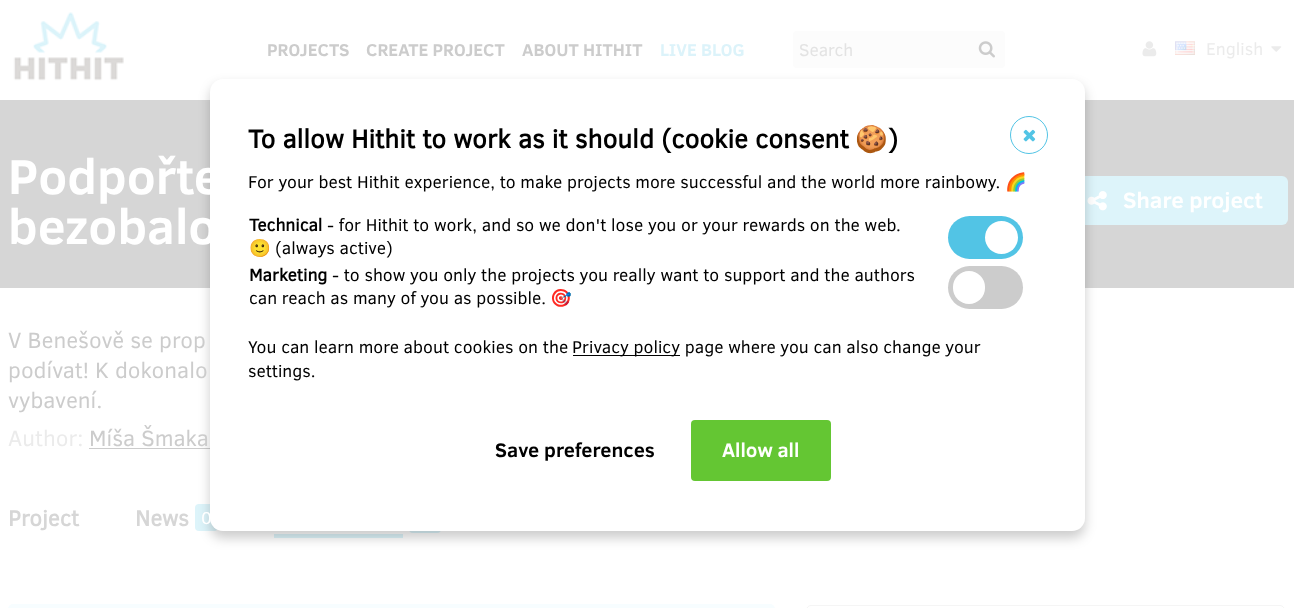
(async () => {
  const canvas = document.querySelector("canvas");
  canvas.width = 1294;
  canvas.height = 608;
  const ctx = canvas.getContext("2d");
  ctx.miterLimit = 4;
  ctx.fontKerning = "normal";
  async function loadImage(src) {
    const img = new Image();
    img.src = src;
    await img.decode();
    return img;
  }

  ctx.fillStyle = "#ffffff";
  ctx.fillRect(0, 0, 1294, 608);
  ctx.drawImage(await loadImage("img/1.png"), 13, 12, 111, 69);
  ctx.fillStyle = "#fcfcfc";
  ctx.beginPath();
  ctx.roundRect(793, 31, 212, 37, 4);
  ctx.fill();
  ctx.drawImage(await loadImage("img/2.png"), 978, 41, 17, 17);
  ctx.drawImage(await loadImage("img/3.png"), 1142, 41, 15, 16);
  ctx.drawImage(await loadImage("img/4.png"), 1175, 41, 20, 14);
  ctx.drawImage(await loadImage("img/5.png"), 1271, 46, 11, 6);
  ctx.fillStyle = "#d6d6d6";
  ctx.fillRect(0, 100, 1294, 188);
  ctx.fillStyle = "#ddf4fa";
  ctx.beginPath();
  ctx.roundRect(1063, 176, 225, 49, 6);
  ctx.fill();
  ctx.drawImage(await loadImage("img/6.png"), 1087, 191, 20, 20);
  ctx.fillStyle = "#cccccc";
  ctx.fillRect(89, 448, 121, 1);
  ctx.fillStyle = "#ddf4fa";
  ctx.beginPath();
  ctx.roundRect(195, 504, 23, 27, 4);
  ctx.fill();
  ctx.beginPath();
  ctx.roundRect(409, 505, 32, 28, 4);
  ctx.fill();
  ctx.fillRect(274, 534, 129, 4);
  ctx.fillStyle = "#f7fdff";
  ctx.beginPath();
  ctx.roundRect(8, 604, 767, 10, 6);
  ctx.fill();
  ctx.beginPath();
  ctx.roundRect(806.5, 605.5, 478, 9, 5.5);
  ctx.strokeStyle = "#f5f5f5";
  ctx.stroke();
  ctx.fillStyle = "rgba(0, 0, 0, 0.2)";
  ctx.filter = "blur(6px)";
  ctx.beginPath();
  ctx.roundRect(210, 85, 875, 453, 13);
  ctx.fill();
  ctx.filter = "none";
  ctx.fillStyle = "#ffffff";
  ctx.beginPath();
  ctx.roundRect(210, 79, 875, 452, 13);
  ctx.fill();
  ctx.beginPath();
  ctx.arc(1029, 135, 18.5, 0, Math.PI * 2);
  ctx.strokeStyle = "#52c4e5";
  ctx.stroke();
  ctx.drawImage(await loadImage("img/7.png"), 1023, 129, 13, 13);
  ctx.fillStyle = "#52c4e5";
  ctx.beginPath();
  ctx.roundRect(948, 216, 75, 43, 21.5);
  ctx.fill();
  ctx.fillStyle = "#ffffff";
  ctx.beginPath();
  ctx.arc(1001.5, 237.5, 16.5, 0, Math.PI * 2);
  ctx.fill();
  ctx.fillStyle = "#cccccc";
  ctx.beginPath();
  ctx.roundRect(948, 266, 75, 43, 21.5);
  ctx.fill();
  ctx.fillStyle = "#ffffff";
  ctx.beginPath();
  ctx.roundRect(953, 271, 32, 33, 16);
  ctx.fill();
  ctx.fillStyle = "#000000";
  ctx.fillRect(573, 355, 107, 1);
  ctx.fillStyle = "#64c633";
  ctx.beginPath();
  ctx.roundRect(691, 420, 140, 61, 4);
  ctx.fill();
  ctx.font = "bold 17.5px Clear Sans";
  ctx.fillStyle = "#cccccc";
  for (const [text, x, y] of [
    ["PROJECTS", 267, 56],
    ["CREATE PROJECT", 366, 56],
    ["ABOUT HITHIT", 522, 56],
  ]) {
    ctx.fillText(text, x, y);
  }
  ctx.fillStyle = "#dcf3fa";
  ctx.fillText("LIVE BLOG", 660, 56);
  ctx.font = "17.5px Clear Sans";
  ctx.fillStyle = "#e3e3e3";
  ctx.fillText("Search", 799, 56);
  ctx.fillStyle = "#ebebeb";
  ctx.fillText("English", 1206, 55);
  ctx.font = "bold 50px Clear Sans";
  ctx.fillStyle = "#ffffff";
  ctx.fillText("Podpořte", 8, 194);
  ctx.fillText("bezobalo", 8, 244);
  ctx.font = "bold 22.5px Clear Sans";
  ctx.fillText("Share project", 1123, 208);
  ctx.font = "22.5px Clear Sans";
  ctx.fillStyle = "#cccccc";
  for (const [text, x, y] of [
    ["V Benešově se prop", 8, 348],
    ["podívat! K dokonalo", 8, 378],
    ["vybavení.", 8, 408],
  ]) {
    ctx.fillText(text, x, y);
  }
  ctx.fillStyle = "#ebebeb";
  ctx.fillText("Author:", 8, 446);
  ctx.fillStyle = "#cccccc";
  ctx.fillText("Míša Šmaka", 89, 446);
  ctx.font = "bold 22.5px 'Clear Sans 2'";
  ctx.fillStyle = "#d6d6d6";
  ctx.fillText("Project", 8, 526);
  ctx.fillText("News", 135, 526);
  ctx.font = "17.5px Clear Sans";
  ctx.fillStyle = "#ffffff";
  ctx.fillText("0", 201, 524);
  ctx.font = "bold 26.25px 'Clear Sans 2'";
  ctx.fillStyle = "#000000";
  ctx.fillText("To allow Hithit to work as it should (cookie consent", 248, 148);
  ctx.font = "bold 26.25px Noto Color Emoji";
  ctx.fillText("🍪", 855, 148);
  ctx.font = "bold 26.25px 'Clear Sans 2'";
  ctx.fillText(")", 888, 148);
  ctx.font = "17.5px Clear Sans";
  ctx.fillText("For your best Hithit experience, to make projects more successful and the world more rainbowy.", 248, 188);
  ctx.font = "17.5px Noto Color Emoji";
  ctx.fillText("🌈", 1005, 188);
  ctx.font = "bold 17.5px 'Clear Sans 2'";
  ctx.fillText("Technical", 249, 231);
  ctx.font = "17.5px Clear Sans";
  ctx.fillText("- for Hithit to work, and so we don't lose you or your rewards on the web.", 327, 231);
  ctx.font = "17.5px Noto Color Emoji";
  ctx.fillText("🙂", 249, 254);
  ctx.font = "17.5px Clear Sans";
  ctx.fillText("(always active)", 275, 254);
  ctx.font = "bold 17.5px 'Clear Sans 2'";
  ctx.fillText("Marketing", 249, 281);
  ctx.font = "17.5px Clear Sans";
  ctx.fillText("- to show you only the projects you really want to support and the authors", 332, 281);
  ctx.fillText("can reach as many of you as possible.", 249, 304);
  ctx.font = "17.5px Noto Color Emoji";
  ctx.fillText("🎯", 550, 304);
  ctx.font = "17.5px Clear Sans";
  for (const [text, x, y] of [
    ["You can learn more about cookies on the", 248, 353],
    ["Privacy policy page where you can also change your", 572, 353],
    ["settings.", 248, 377],
  ]) {
    ctx.fillText(text, x, y);
  }
  ctx.font = "bold 20px Clear Sans";
  ctx.fillText("Save preferences", 495, 457);
  ctx.fillStyle = "#ffffff";
  ctx.fillText("Allow all", 722, 457);
})();
